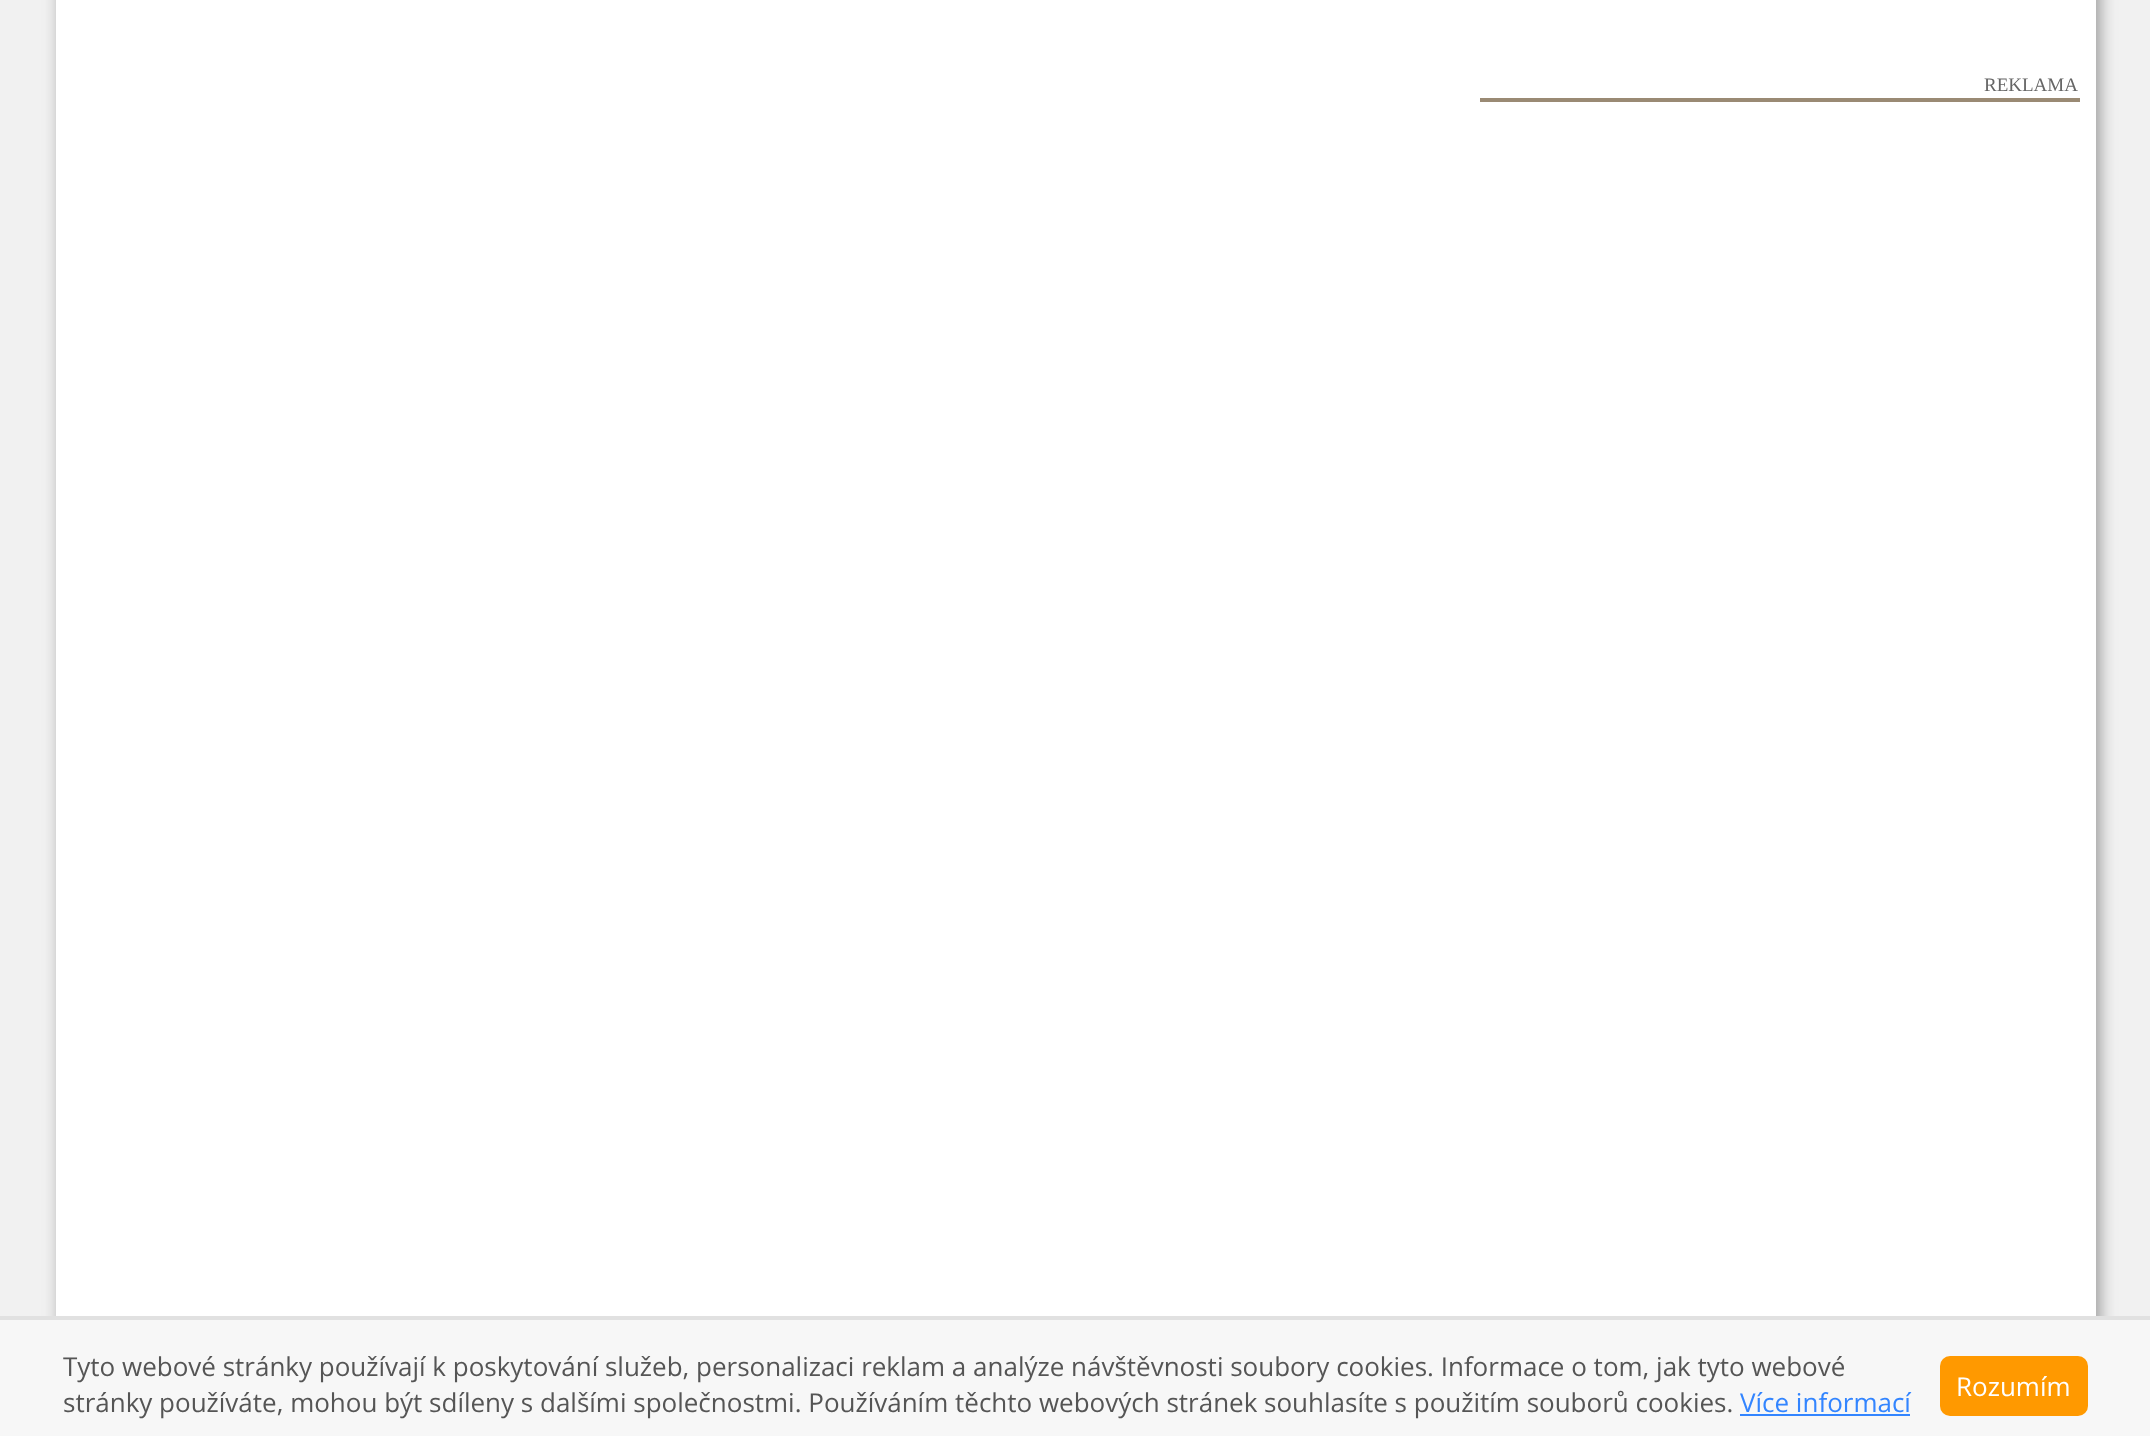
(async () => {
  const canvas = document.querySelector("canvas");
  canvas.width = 2150;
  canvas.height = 1436;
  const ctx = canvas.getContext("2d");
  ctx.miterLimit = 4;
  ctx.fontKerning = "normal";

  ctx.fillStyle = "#f1f1f1";
  ctx.fillRect(0, 0, 2150, 1436);
  ctx.fillStyle = "#999999";
  ctx.filter = "blur(8px)";
  ctx.beginPath();
  ctx.rect(60, -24, 2040, 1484);
  ctx.fill();
  ctx.filter = "none";
  for (const [x, y, w, h, color] of [
    [56, 0, 2040, 1316, "#ffffff"],
    [1480, 98, 600, 4, "#9a8a74"],
    [0, 1320, 2150, 116, "#f7f7f7"],
    [0, 1316, 2150, 4, "#e1e1e1"],
    [1740, 1414, 170, 2, "#3385ff"],
  ]) {
    ctx.fillStyle = color;
    ctx.fillRect(x, y, w, h);
  }
  ctx.fillStyle = "#ff9900";
  ctx.beginPath();
  ctx.roundRect(1940, 1356, 148, 60, 10);
  ctx.fill();
  ctx.font = "19px Liberation Serif";
  ctx.fillStyle = "#666666";
  ctx.fillText("REKLAMA", 1984, 91);
  ctx.font = "26px Open Sans";
  ctx.fillStyle = "#555555";
  ctx.fillText("Tyto webové stránky používají k poskytování služeb, personalizaci reklam a analýze návštěvnosti soubory cookies. Informace o tom, jak tyto webové", 63, 1376);
  ctx.fillText("stránky používáte, mohou být sdíleny s dalšími společnostmi. Používáním těchto webových stránek souhlasíte s použitím souborů cookies.", 63, 1412);
  ctx.fillStyle = "#3385ff";
  ctx.fillText("Více informací", 1740, 1412);
  ctx.fillStyle = "#ffffff";
  ctx.fillText("Rozumím", 1956, 1396);
})();
